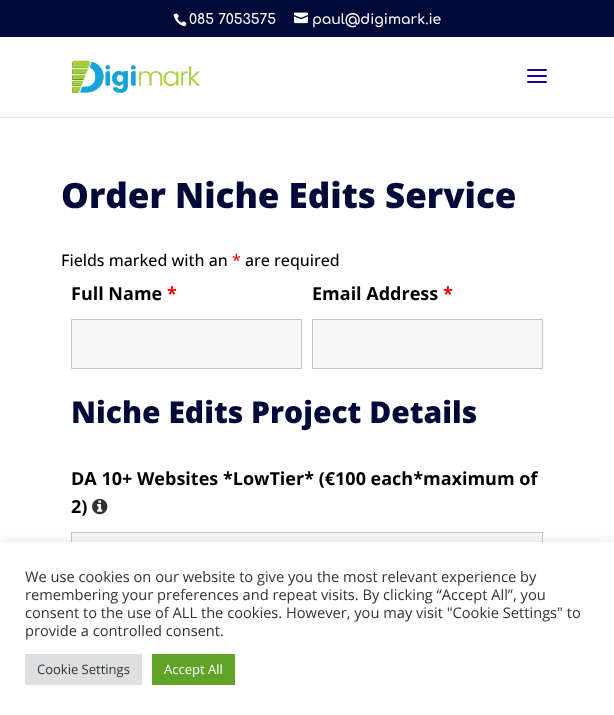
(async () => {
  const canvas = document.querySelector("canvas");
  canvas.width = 614;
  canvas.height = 715;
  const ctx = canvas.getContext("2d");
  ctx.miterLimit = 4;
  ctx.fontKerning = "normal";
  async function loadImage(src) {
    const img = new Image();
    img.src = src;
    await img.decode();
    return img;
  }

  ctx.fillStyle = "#ffffff";
  ctx.fillRect(0, 0, 614, 715);
  ctx.fillStyle = "#000938";
  ctx.fillRect(0, 0, 614, 37);
  ctx.drawImage(await loadImage("img/1.png"), 173, 13, 14, 14);
  ctx.drawImage(await loadImage("img/2.png"), 294, 12, 14, 12);
  ctx.fillStyle = "#e6e6e6";
  ctx.fillRect(0, 117, 614, 1);
  ctx.drawImage(await loadImage("img/3.png"), 72, 60, 128, 33);
  ctx.drawImage(await loadImage("img/4.png"), 527, 69, 20, 14);
  ctx.fillStyle = "#f7f7f7";
  ctx.beginPath();
  ctx.rect(71.5, 319.5, 230, 49);
  ctx.fill();
  ctx.strokeStyle = "#c4c4c4";
  ctx.stroke();
  ctx.beginPath();
  ctx.rect(312.5, 319.5, 230, 49);
  ctx.fill();
  ctx.stroke();
  ctx.drawImage(await loadImage("img/5.png"), 92, 498, 16, 17);
  ctx.fillRect(72, 533, 470, 9);
  ctx.strokeRect(71.5, 532.5, 471, 49);
  ctx.fillStyle = "rgba(172, 171, 171, 0.3)";
  ctx.filter = "blur(5px)";
  ctx.beginPath();
  ctx.rect(0, 541, 614, 173);
  ctx.fill();
  ctx.filter = "none";
  for (const [x, y, w, h, color] of [
    [0, 542, 614, 173, "#ffffff"],
    [25, 654, 117, 31, "#dedfe0"],
    [152, 654, 83, 31, "#61a229"],
  ]) {
    ctx.fillStyle = color;
    ctx.fillRect(x, y, w, h);
  }
  ctx.font = "600 14px Comfortaa";
  ctx.fillStyle = "#ffffff";
  ctx.fillText("085 7053575", 189, 24);
  ctx.fillText("paul@digimark.ie", 312, 24);
  ctx.font = "800 35px Open Sans";
  ctx.fillStyle = "#000938";
  ctx.fillText("Order Niche Edits Service", 61, 208);
  ctx.font = "500 16px Open Sans";
  ctx.fillStyle = "#000000";
  ctx.fillText("Fields marked with an", 61, 266);
  ctx.fillStyle = "#e80000";
  ctx.fillText("*", 232, 266);
  ctx.fillStyle = "#000000";
  ctx.fillText("are required", 245, 266);
  ctx.font = "bold 18px Open Sans";
  ctx.fillText("Full Name", 71, 300);
  ctx.fillStyle = "#e80000";
  ctx.fillText("*", 167, 300);
  ctx.fillStyle = "#000000";
  ctx.fillText("Email Address", 312, 300);
  ctx.fillStyle = "#e80000";
  ctx.fillText("*", 443, 300);
  ctx.font = "800 30px Open Sans";
  ctx.fillStyle = "#000938";
  ctx.fillText("Niche Edits Project Details", 71, 423);
  ctx.font = "bold 18px Open Sans";
  ctx.fillStyle = "#000000";
  ctx.fillText("DA 10+ Websites *LowTier* (€100 each*maximum of", 71, 485);
  ctx.fillText("2)", 71, 513);
  ctx.font = "14.65px Open Sans";
  ctx.fillStyle = "#333333";
  for (const [text, x, y] of [
    ["We use cookies on our website to give you the most relevant experience by", 25, 582],
    ["remembering your preferences and repeat visits. By clicking “Accept All”, you", 25, 600],
    ["consent to the use of ALL the cookies. However, you may visit \"Cookie Settings\" to", 25, 618],
    ["provide a controlled consent.", 25, 636],
  ]) {
    ctx.fillText(text, x, y);
  }
  ctx.font = "13px Open Sans";
  ctx.fillText("Cookie Settings", 37, 674);
  ctx.fillStyle = "#ffffff";
  ctx.fillText("Accept All", 164, 674);
})();
